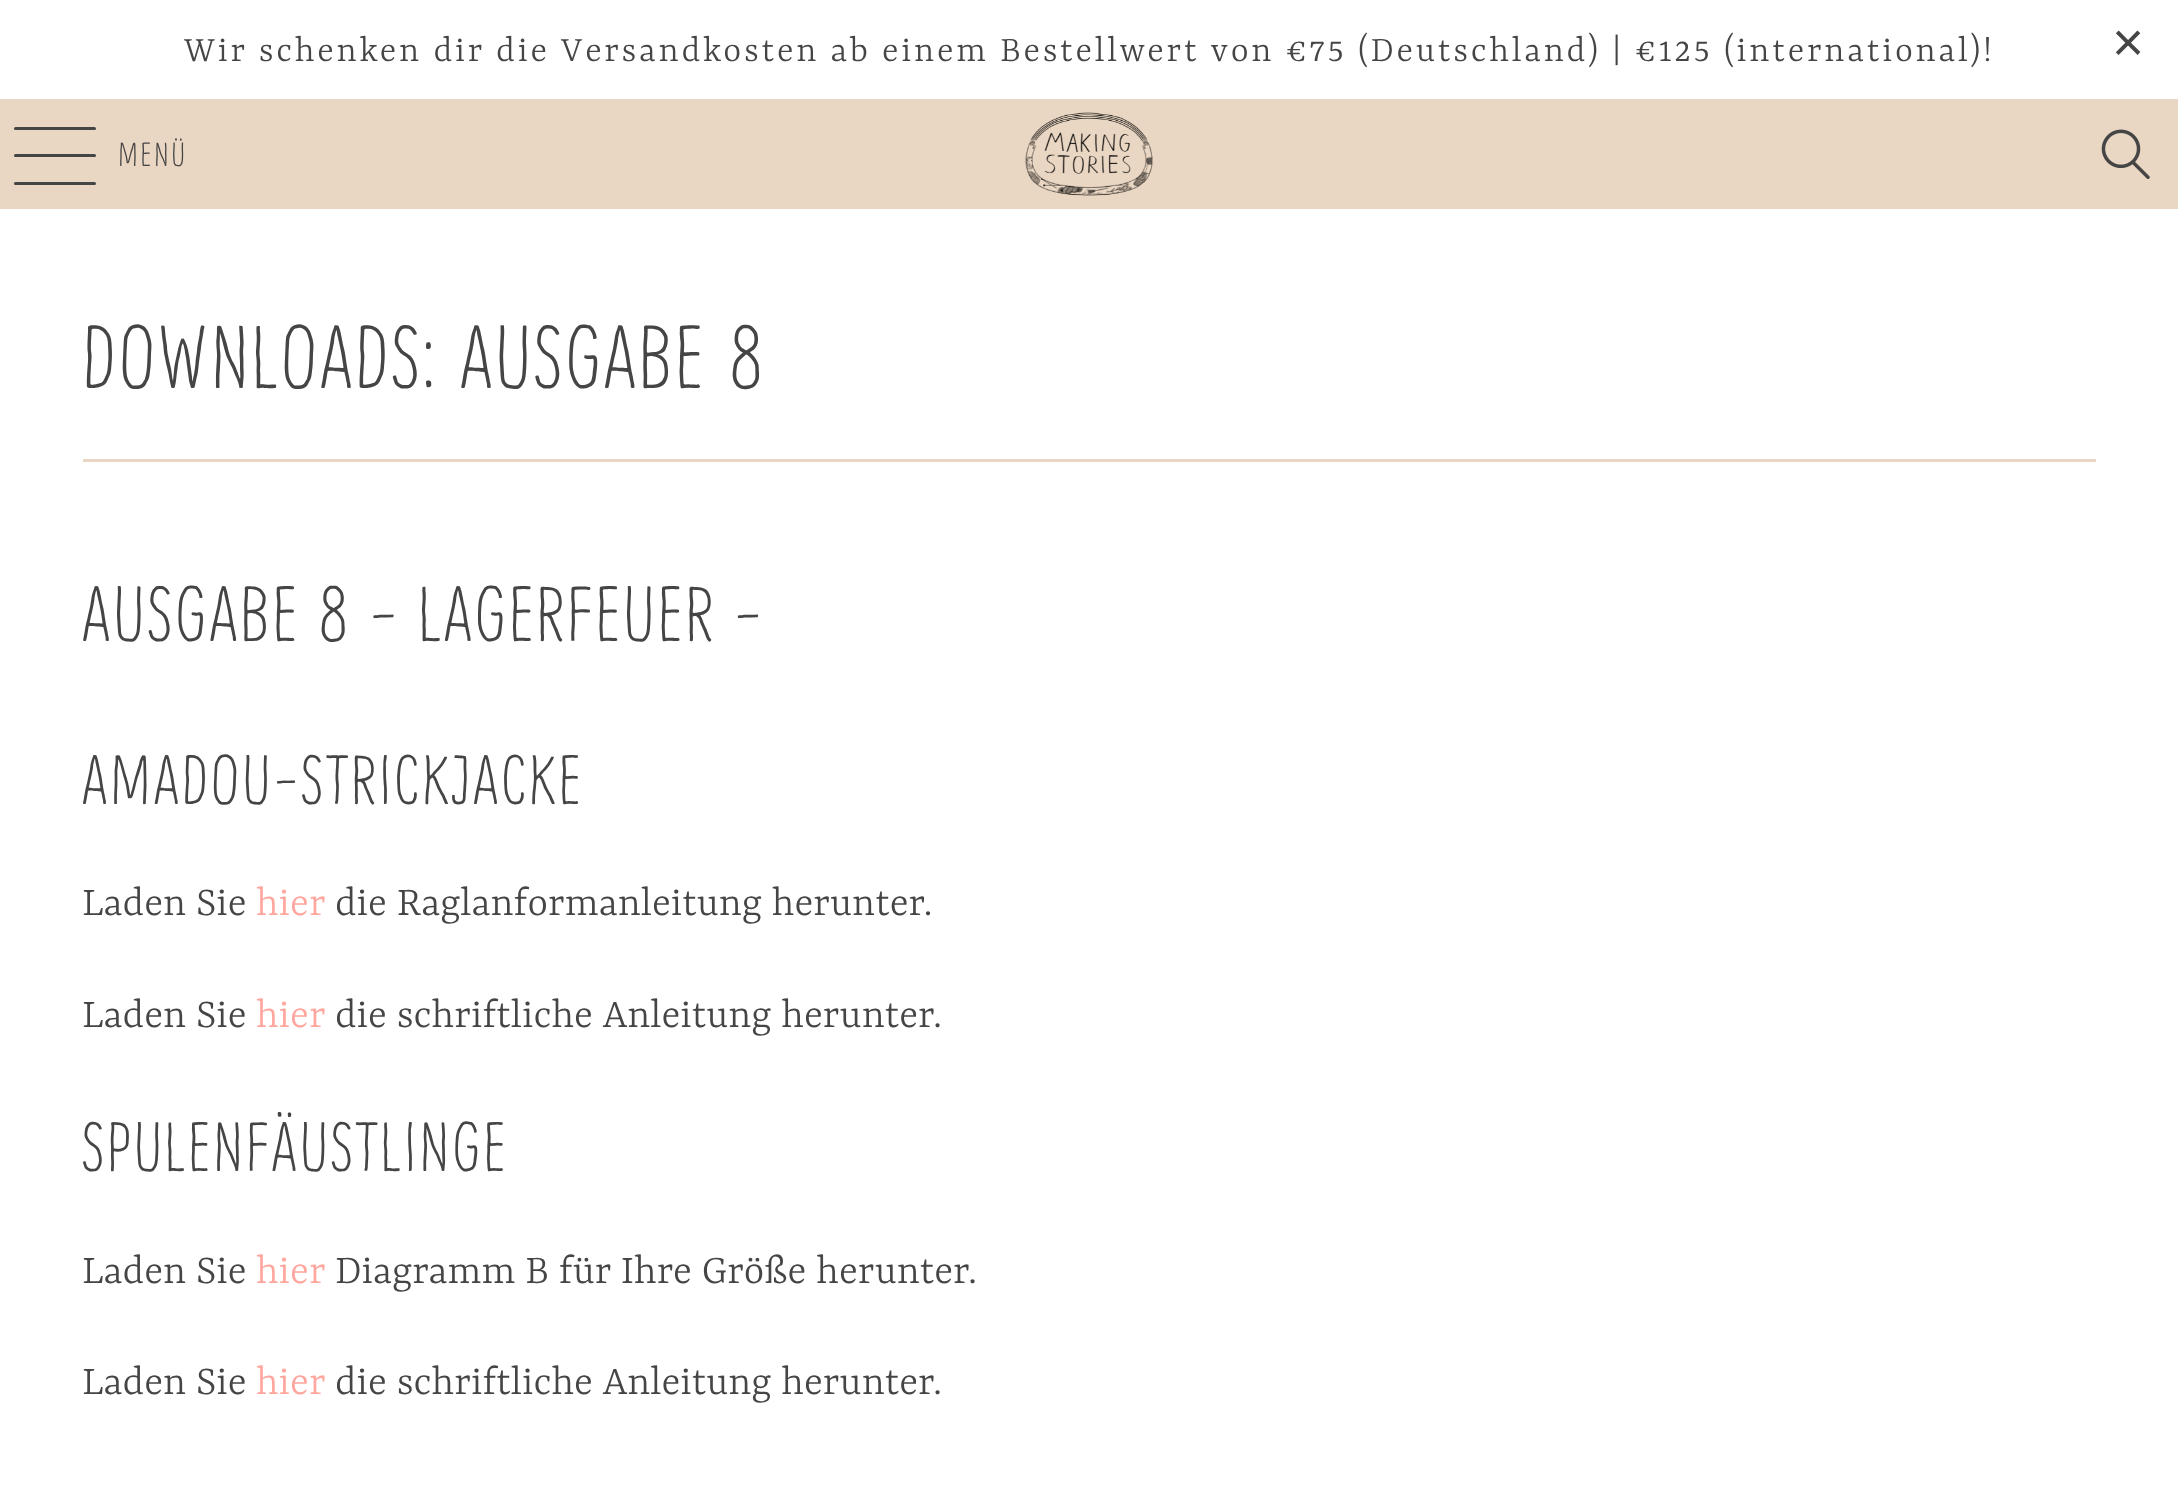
(async () => {
  const canvas = document.querySelector("canvas");
  canvas.width = 2178;
  canvas.height = 1507;
  const ctx = canvas.getContext("2d");
  ctx.miterLimit = 4;
  ctx.fontKerning = "normal";
  async function loadImage(src) {
    const img = new Image();
    img.src = src;
    await img.decode();
    return img;
  }

  ctx.fillStyle = "#ffffff";
  ctx.fillRect(0, 0, 2178, 1507);
  ctx.fillStyle = "#ead7c3";
  ctx.fillRect(0, 99, 2178, 110);
  ctx.fillStyle = "#454545";
  ctx.beginPath();
  ctx.roundRect(14, 127, 82, 3, 1.5);
  ctx.fill();
  ctx.beginPath();
  ctx.roundRect(14, 154, 82, 3, 1.5);
  ctx.fill();
  ctx.beginPath();
  ctx.roundRect(14, 182, 82, 3, 1.5);
  ctx.fill();
  ctx.drawImage(await loadImage("img/1.png"), 1025, 112, 128, 84);
  ctx.drawImage(await loadImage("img/2.png"), 2101, 129, 49, 50);
  ctx.fillStyle = "#ead7c3";
  ctx.fillRect(83, 459, 2013, 3);
  ctx.letterSpacing = "2.75px";
  ctx.font = "300 38.5px Rasa";
  ctx.fillStyle = "#454545";
  ctx.fillText("Wir schenken dir die Versandkosten ab einem Bestellwert von €75 (Deutschland) | €125 (international)!", 184, 61);
  ctx.font = "55px Liberation Sans";
  ctx.fillText("×", 2112, 61);
  ctx.font = "300 33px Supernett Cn";
  ctx.fillText("MENÜ", 118, 166);
  ctx.wordSpacing = "2px";
  ctx.font = "300 88px Supernett Cn";
  ctx.fillText("DOWNLOADS: AUSGABE 8", 82, 388);
  ctx.wordSpacing = "0px";
  ctx.font = "300 77px Supernett Cn";
  ctx.fillText("AUSGABE 8 - LAGERFEUER -", 82, 641);
  ctx.font = "300 68.75px Supernett Cn";
  ctx.fillText("AMADOU-STRICKJACKE", 82, 804);
  ctx.letterSpacing = "0px";
  ctx.font = "300 44px Rasa";
  ctx.fillText("Laden Sie", 82, 915);
  ctx.fillStyle = "#ffa69e";
  ctx.fillText("hier", 256, 915);
  ctx.fillStyle = "#454545";
  ctx.fillText("die Raglanformanleitung herunter.", 335, 915);
  ctx.fillText("Laden Sie", 82, 1027);
  ctx.fillStyle = "#ffa69e";
  ctx.fillText("hier", 256, 1027);
  ctx.fillStyle = "#454545";
  ctx.fillText("die schriftliche Anleitung herunter.", 335, 1027);
  ctx.letterSpacing = "2.75px";
  ctx.font = "300 68.75px Supernett Cn";
  ctx.fillText("SPULENFÄUSTLINGE", 82, 1171);
  ctx.letterSpacing = "0px";
  ctx.font = "300 44px Rasa";
  ctx.fillText("Laden Sie", 82, 1283);
  ctx.fillStyle = "#ffa69e";
  ctx.fillText("hier", 256, 1283);
  ctx.fillStyle = "#454545";
  ctx.fillText("Diagramm B für Ihre Größe herunter.", 335, 1283);
  ctx.fillText("Laden Sie", 82, 1394);
  ctx.fillStyle = "#ffa69e";
  ctx.fillText("hier", 256, 1394);
  ctx.fillStyle = "#454545";
  ctx.fillText("die schriftliche Anleitung herunter.", 335, 1394);
})();
